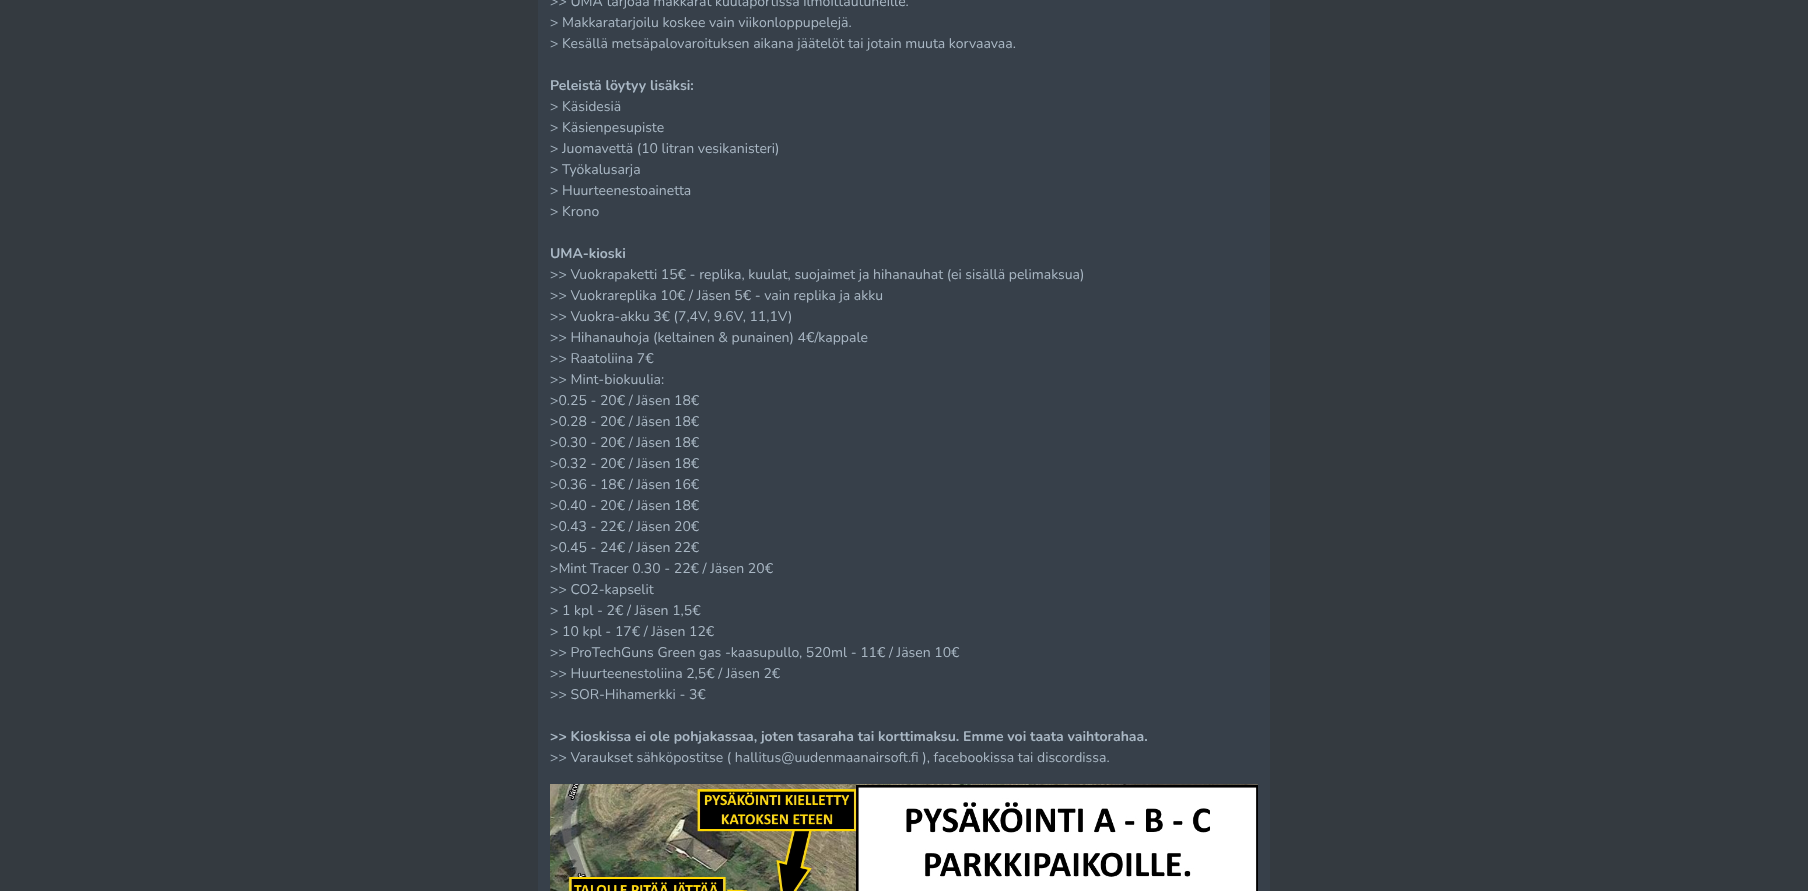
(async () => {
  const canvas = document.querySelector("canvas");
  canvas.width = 1808;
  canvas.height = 891;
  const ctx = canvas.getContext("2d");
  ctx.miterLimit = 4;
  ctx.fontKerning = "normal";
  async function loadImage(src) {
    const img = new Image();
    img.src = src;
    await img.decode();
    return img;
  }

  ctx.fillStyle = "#343a40";
  ctx.fillRect(0, 0, 1808, 891);
  ctx.fillStyle = "#37404a";
  ctx.fillRect(538, 0, 732, 891);
  ctx.drawImage(await loadImage("img/1.png"), 550, 784, 708, 107);
  ctx.font = "14px Nunito";
  ctx.fillStyle = "#aab8c5";
  for (const [text, x, y] of [
    [">> UMA tarjoaa makkarat kuulaportissa ilmoittautuneille.", 550, 6],
    ["> Makkaratarjoilu koskee vain viikonloppupelejä.", 550, 27],
    ["> Kesällä metsäpalovaroituksen aikana jäätelöt tai jotain muuta korvaavaa.", 550, 48],
  ]) {
    ctx.fillText(text, x, y);
  }
  ctx.font = "bold 14px Nunito";
  ctx.fillText("Peleistä löytyy lisäksi:", 550, 90);
  ctx.font = "14px Nunito";
  for (const [text, x, y] of [
    ["> Käsidesiä", 550, 111],
    ["> Käsienpesupiste", 550, 132],
    ["> Juomavettä (10 litran vesikanisteri)", 550, 153],
    ["> Työkalusarja", 550, 174],
    ["> Huurteenestoainetta", 550, 195],
    ["> Krono", 550, 216],
  ]) {
    ctx.fillText(text, x, y);
  }
  ctx.font = "bold 14px Nunito";
  ctx.fillText("UMA-kioski", 550, 258);
  ctx.font = "14px Nunito";
  for (const [text, x, y] of [
    [">> Vuokrapaketti 15€ - replika, kuulat, suojaimet ja hihanauhat (ei sisällä pelimaksua)", 550, 279],
    [">> Vuokrareplika 10€ / Jäsen 5€ - vain replika ja akku", 550, 300],
    [">> Vuokra-akku 3€ (7,4V, 9.6V, 11,1V)", 550, 321],
    [">> Hihanauhoja (keltainen & punainen) 4€/kappale", 550, 342],
    [">> Raatoliina 7€", 550, 363],
    [">> Mint-biokuulia:", 550, 384],
    [">0.25 - 20€ / Jäsen 18€", 550, 405],
    [">0.28 - 20€ / Jäsen 18€", 550, 426],
    [">0.30 - 20€ / Jäsen 18€", 550, 447],
    [">0.32 - 20€ / Jäsen 18€", 550, 468],
    [">0.36 - 18€ / Jäsen 16€", 550, 489],
    [">0.40 - 20€ / Jäsen 18€", 550, 510],
    [">0.43 - 22€ / Jäsen 20€", 550, 531],
    [">0.45 - 24€ / Jäsen 22€", 550, 552],
    [">Mint Tracer 0.30 - 22€ / Jäsen 20€", 550, 573],
    [">> CO2-kapselit", 550, 594],
    ["> 1 kpl - 2€ / Jäsen 1,5€", 550, 615],
    ["> 10 kpl - 17€ / Jäsen 12€", 550, 636],
    [">> ProTechGuns Green gas -kaasupullo, 520ml - 11€ / Jäsen 10€", 550, 657],
    [">> Huurteenestoliina 2,5€ / Jäsen 2€", 550, 678],
    [">> SOR-Hihamerkki - 3€", 550, 699],
  ]) {
    ctx.fillText(text, x, y);
  }
  ctx.font = "bold 14px Nunito";
  ctx.fillText(">> Kioskissa ei ole pohjakassaa, joten tasaraha tai korttimaksu. Emme voi taata vaihtorahaa.", 550, 741);
  ctx.font = "14px Nunito";
  ctx.fillText(">> Varaukset sähköpostitse ( hallitus@uudenmaanairsoft.fi ), facebookissa tai discordissa.", 550, 762);
})();
